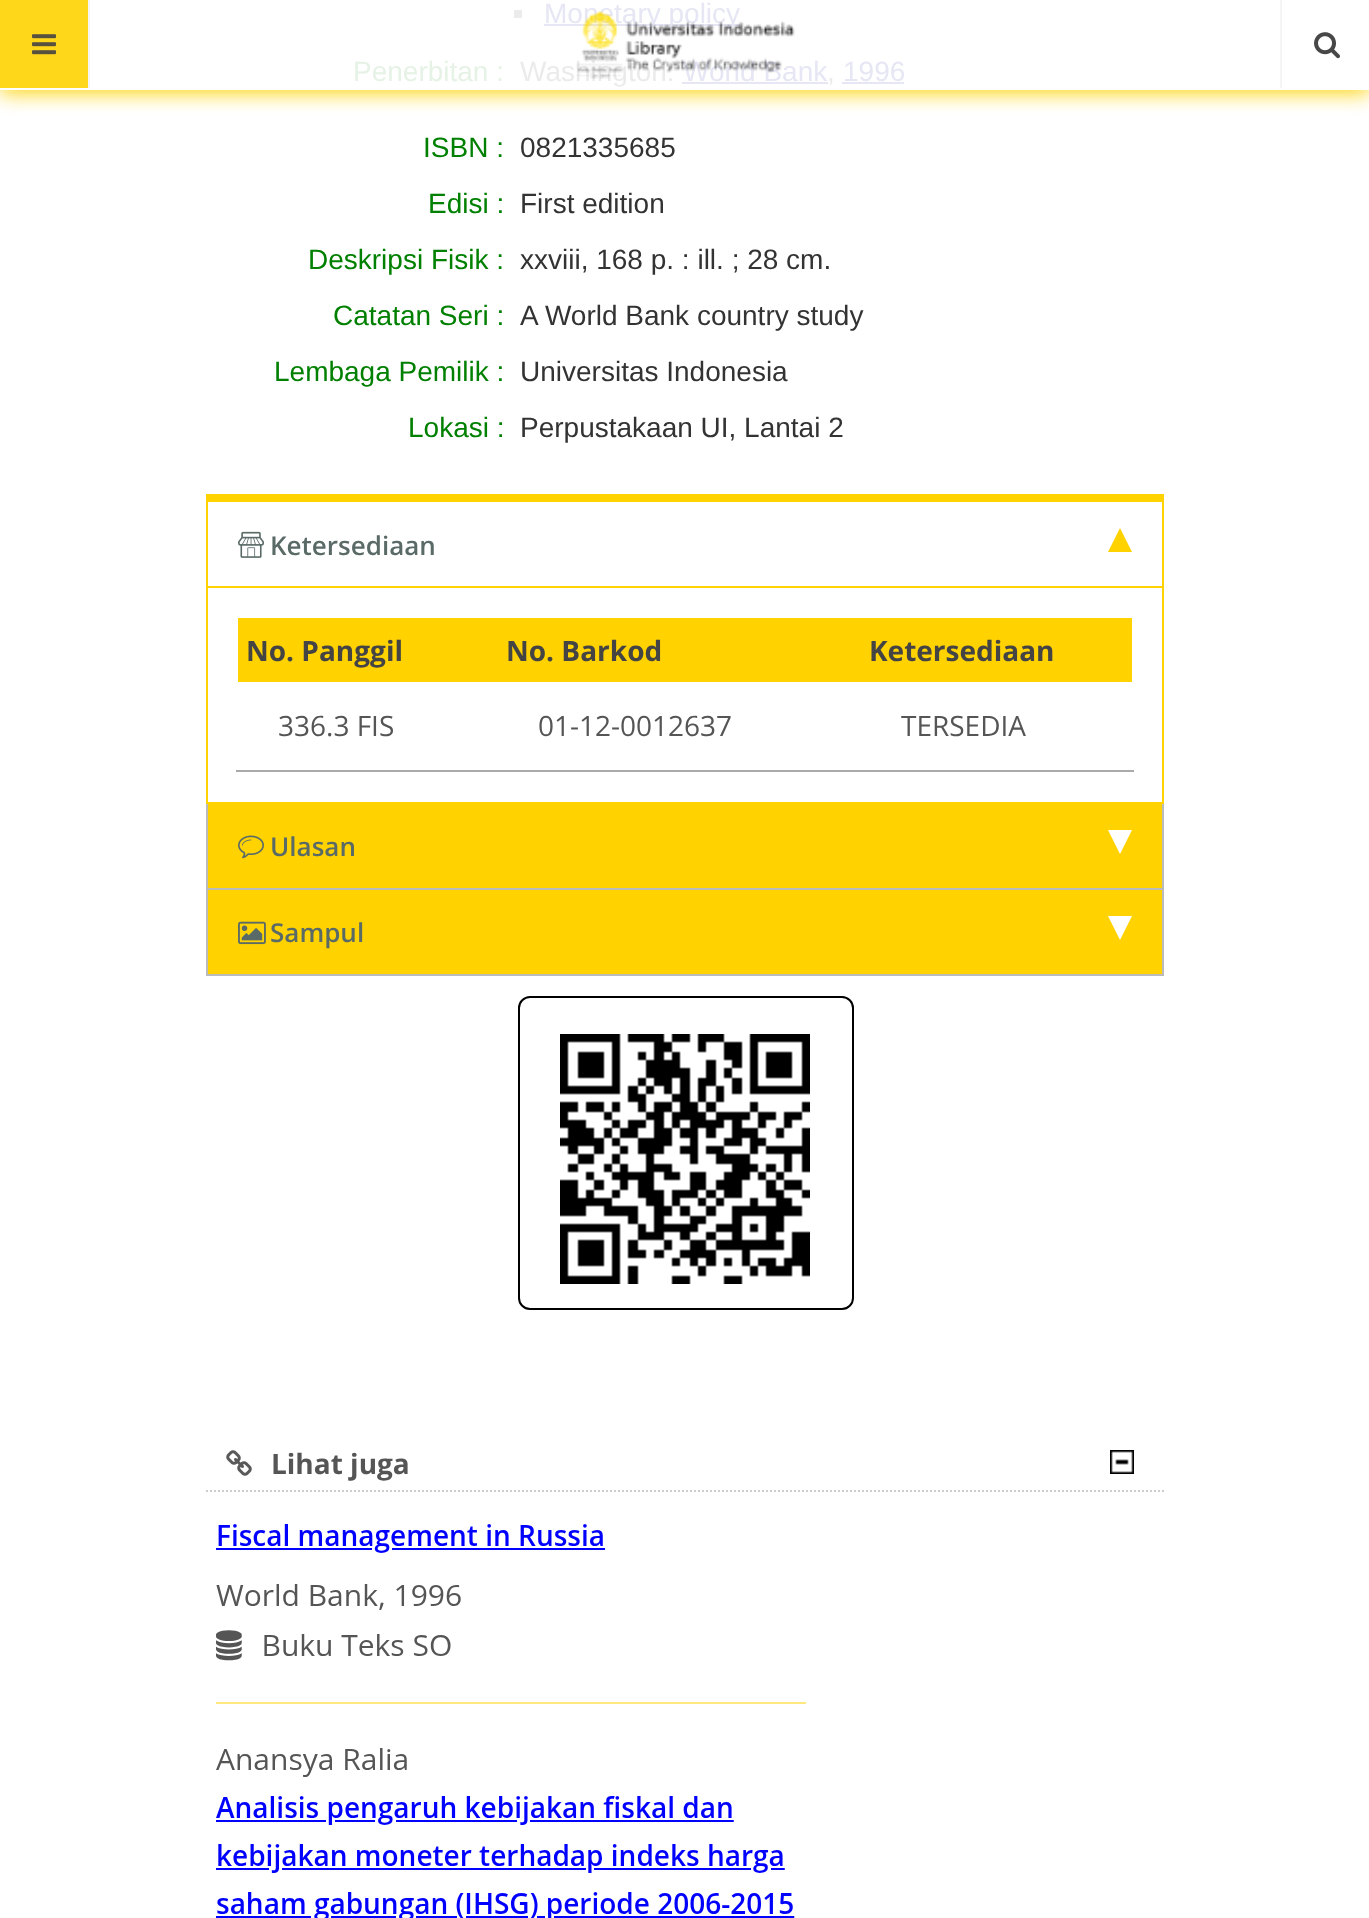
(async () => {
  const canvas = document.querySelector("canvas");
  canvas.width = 1369;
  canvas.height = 1918;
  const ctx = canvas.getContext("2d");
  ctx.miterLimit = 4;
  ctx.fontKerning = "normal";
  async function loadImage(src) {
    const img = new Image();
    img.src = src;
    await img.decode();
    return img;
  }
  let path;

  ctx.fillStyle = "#ffffff";
  ctx.fillRect(0, 0, 1369, 1918);
  for (const [x, y, w, h, color] of [
    [514, 10, 8, 8, "#ebebeb"],
    [544, 24, 196, 2, "#e6e6f4"],
    [682, 82, 146, 2, "#e6e6f4"],
    [842, 82, 62, 2, "#e6e6f4"],
  ]) {
    ctx.fillStyle = color;
    ctx.fillRect(x, y, w, h);
  }
  ctx.save();
  ctx.beginPath();
  ctx.rect(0, 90, 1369, 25);
  ctx.clip();
  ctx.fillStyle = "#ffd71a";
  ctx.filter = "blur(10px)";
  ctx.beginPath();
  ctx.rect(0, 4, 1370, 90);
  ctx.fill();
  ctx.filter = "none";
  ctx.restore();
  ctx.fillStyle = "#ffd71a";
  ctx.fillRect(0, 0, 88, 88);
  ctx.fillStyle = "#f5f5f5";
  ctx.fillRect(88, 0, 2, 88);
  ctx.drawImage(await loadImage("img/1.png"), 32, 34, 24, 21);
  ctx.fillRect(1280, 0, 2, 88);
  ctx.drawImage(await loadImage("img/3.png"), 1314, 32, 26, 27);
  for (const [x, y, w, h, color] of [
    [206, 494, 958, 8, "#ffd200"],
    [1162, 494, 2, 92, "#ffd200"],
    [206, 494, 2, 92, "#ffd200"],
  ]) {
    ctx.fillStyle = color;
    ctx.fillRect(x, y, w, h);
  }
  ctx.drawImage(await loadImage("img/4.png"), 238, 531, 26, 27);
  path = new Path2D("M1132 552H1108L1120 528Z");
  ctx.fill(path);
  ctx.strokeStyle = "#ffd200";
  ctx.lineWidth = 2;
  ctx.strokeRect(207, 587, 956, 216);
  for (const [x, y, w, h, color] of [
    [238, 618, 894, 64, "#ffd200"],
    [236, 770, 898, 2, "#aaaaaa"],
    [208, 804, 954, 84, "#ffd200"],
    [1162, 804, 2, 172, "#bbbbbb"],
    [206, 888, 958, 2, "#bbbbbb"],
    [206, 804, 2, 86, "#bbbbbb"],
  ]) {
    ctx.fillStyle = color;
    ctx.fillRect(x, y, w, h);
  }
  ctx.drawImage(await loadImage("img/5.png"), 238, 835, 26, 24);
  ctx.fillStyle = "#ffffff";
  path = new Path2D("M1108 830H1132L1120 854Z");
  ctx.fill(path);
  for (const [x, y, w, h, color] of [
    [208, 890, 954, 84, "#ffd200"],
    [206, 974, 958, 2, "#bbbbbb"],
    [206, 890, 2, 86, "#bbbbbb"],
  ]) {
    ctx.fillStyle = color;
    ctx.fillRect(x, y, w, h);
  }
  ctx.drawImage(await loadImage("img/6.png"), 238, 921, 28, 24);
  ctx.fillStyle = "#ffffff";
  path = new Path2D("M1108 916H1132L1120 940Z");
  ctx.fill(path);
  ctx.beginPath();
  ctx.roundRect(519, 997, 334, 312, 11);
  ctx.strokeStyle = "#000000";
  ctx.stroke();
  ctx.drawImage(await loadImage("img/7.png"), 560, 1034, 250, 250);
  path = new Path2D("M206 1491H1164");
  ctx.strokeStyle = "#cccccc";
  ctx.setLineDash([2, 2]);
  ctx.stroke(path);
  ctx.drawImage(await loadImage("img/8.png"), 226, 1450, 26, 26);
  ctx.drawImage(await loadImage("img/9.png"), 1110, 1450, 24, 24);
  ctx.drawImage(await loadImage("img/10.png"), 216, 1524, 590, 394);
  ctx.font = "28px Liberation Sans";
  ctx.fillStyle = "#e6e6f4";
  ctx.fillText("Monetary policy", 544, 23);
  ctx.fillStyle = "#e6f2e6";
  ctx.fillText("Penerbitan :", 353, 81);
  ctx.fillStyle = "#ebebeb";
  ctx.fillText("Washington:", 520, 81);
  ctx.fillStyle = "#e6e6f4";
  ctx.fillText("World Bank", 683, 81);
  ctx.drawImage(await loadImage("img/2.png"), 576, 11, 219, 68);
  ctx.fillStyle = "#ebebeb";
  ctx.fillText(",", 827, 81);
  ctx.fillStyle = "#e6e6f4";
  ctx.fillText("1996", 843, 81);
  ctx.fillStyle = "#008000";
  ctx.fillText("ISBN :", 423, 157);
  ctx.fillStyle = "#333333";
  ctx.fillText("0821335685", 520, 157);
  ctx.fillStyle = "#008000";
  ctx.fillText("Edisi :", 428, 213);
  ctx.fillStyle = "#333333";
  ctx.fillText("First edition", 520, 213);
  ctx.fillStyle = "#008000";
  ctx.fillText("Deskripsi Fisik :", 308, 269);
  ctx.fillStyle = "#333333";
  ctx.fillText("xxviii, 168 p. : ill. ; 28 cm.", 520, 269);
  ctx.fillStyle = "#008000";
  ctx.fillText("Catatan Seri :", 333, 325);
  ctx.fillStyle = "#333333";
  ctx.fillText("A World Bank country study", 520, 325);
  ctx.fillStyle = "#008000";
  ctx.fillText("Lembaga Pemilik :", 274, 381);
  ctx.fillStyle = "#333333";
  ctx.fillText("Universitas Indonesia", 520, 381);
  ctx.fillStyle = "#008000";
  ctx.fillText("Lokasi :", 408, 437);
  ctx.fillStyle = "#333333";
  ctx.fillText("Perpustakaan UI, Lantai 2", 520, 437);
  ctx.font = "600 26px Open Sans";
  ctx.fillStyle = "#596a67";
  ctx.fillText("Ketersediaan", 270, 555);
  ctx.font = "bold 28px Open Sans";
  ctx.fillStyle = "#444444";
  for (const [text, x, y] of [
    ["No. Panggil", 246, 661],
    ["No. Barkod", 506, 661],
    ["Ketersediaan", 869, 661],
  ]) {
    ctx.fillText(text, x, y);
  }
  ctx.font = "28px Open Sans";
  ctx.fillStyle = "#555555";
  for (const [text, x, y] of [
    ["336.3 FIS", 278, 736],
    ["01-12-0012637", 538, 736],
    ["TERSEDIA", 901, 736],
  ]) {
    ctx.fillText(text, x, y);
  }
  ctx.font = "600 26px Open Sans";
  ctx.fillStyle = "#596a67";
  ctx.fillText("Ulasan", 270, 856);
  ctx.fillText("Sampul", 270, 942);
  ctx.font = "bold 28px Open Sans";
  ctx.fillStyle = "#555555";
  ctx.fillText("Lihat juga", 271, 1474);
})();
